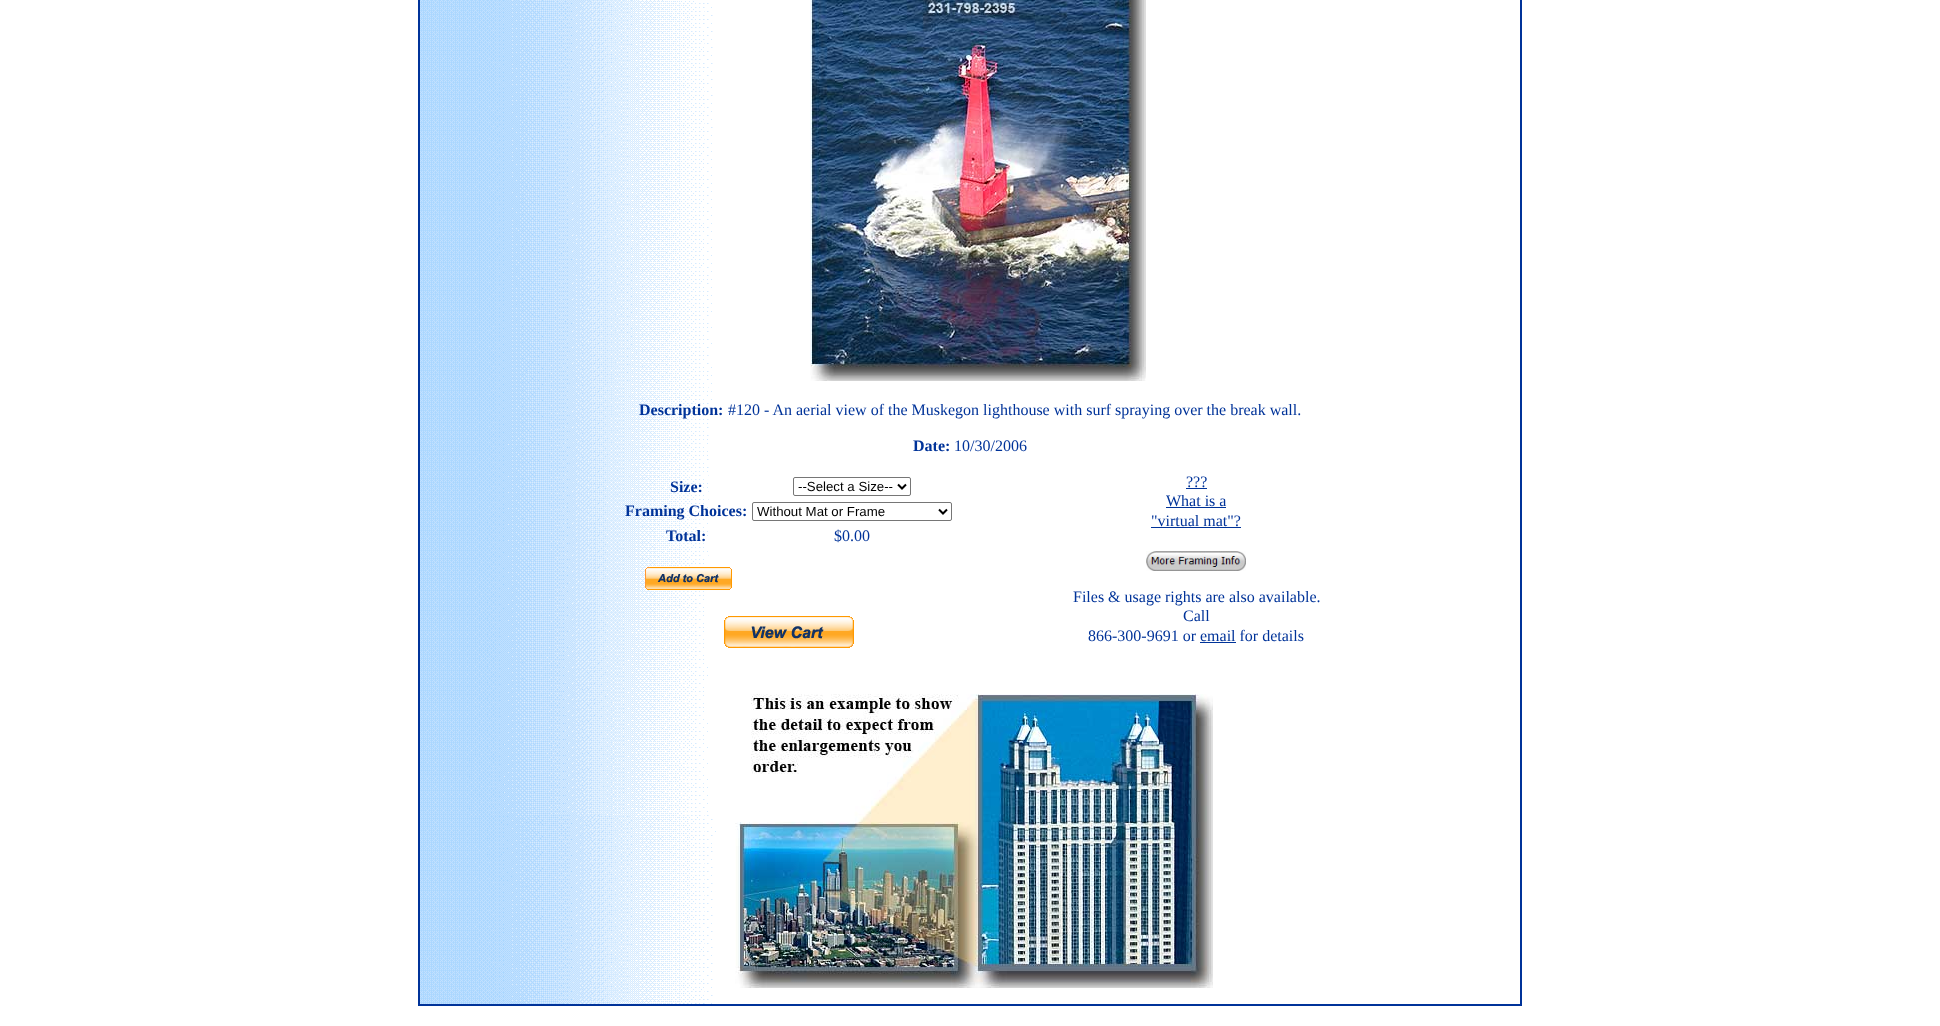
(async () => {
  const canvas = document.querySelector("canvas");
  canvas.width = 1940;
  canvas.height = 1026;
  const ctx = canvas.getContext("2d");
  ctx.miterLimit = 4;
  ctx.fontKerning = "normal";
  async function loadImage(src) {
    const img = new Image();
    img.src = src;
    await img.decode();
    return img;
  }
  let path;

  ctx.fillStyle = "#ffffff";
  ctx.fillRect(0, 0, 1940, 1026);
  ctx.drawImage(await loadImage("img/1.png"), 420, 0, 296, 1004);
  ctx.strokeStyle = "#003399";
  ctx.lineWidth = 2;
  ctx.strokeRect(419, -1, 1102, 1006);
  ctx.drawImage(await loadImage("img/2.png"), 810, 0, 336, 381);
  ctx.beginPath();
  ctx.roundRect(793.5, 477.5, 117, 18, 1.5);
  ctx.strokeStyle = "#767676";
  ctx.lineWidth = 1;
  ctx.stroke();
  path = new Path2D("M898 484.5L902 488.5L906 484.5");
  ctx.strokeStyle = "#000000";
  ctx.lineWidth = 2;
  ctx.stroke(path);
  ctx.beginPath();
  ctx.roundRect(752.5, 502.5, 199, 18, 1.5);
  ctx.strokeStyle = "#767676";
  ctx.lineWidth = 1;
  ctx.stroke();
  path = new Path2D("M939 509.5L943 513.5L947 509.5");
  ctx.strokeStyle = "#000000";
  ctx.lineWidth = 2;
  ctx.stroke(path);
  ctx.drawImage(await loadImage("img/3.png"), 645, 567, 87, 23);
  ctx.drawImage(await loadImage("img/4.png"), 724, 616, 130, 32);
  for (const [x, y, w, h, color] of [
    [1186, 488, 21, 1, "#003399"],
    [1166, 507, 60, 1, "#003399"],
    [1151, 527, 90, 1, "#003399"],
  ]) {
    ctx.fillStyle = color;
    ctx.fillRect(x, y, w, h);
  }
  ctx.drawImage(await loadImage("img/5.png"), 1146, 551, 100, 20);
  ctx.fillRect(1200, 642, 36, 1);
  ctx.drawImage(await loadImage("img/6.png"), 735, 694, 478, 294);
  ctx.font = "bold 16px Liberation Serif";
  ctx.fillText("Description:", 639, 415);
  ctx.font = "16px Liberation Serif";
  ctx.fillText("#120 - An aerial view of the Muskegon lighthouse with surf spraying over the break wall.", 728, 415);
  ctx.font = "bold 16px Liberation Serif";
  ctx.fillText("Date:", 913, 451);
  ctx.font = "16px Liberation Serif";
  ctx.fillText("10/30/2006", 954, 451);
  ctx.font = "bold 16px Liberation Serif";
  ctx.fillText("Size:", 670, 492);
  ctx.font = "13.25px Liberation Sans";
  ctx.fillStyle = "#000000";
  ctx.fillText("--Select a Size--", 798, 491);
  ctx.font = "bold 16px Liberation Serif";
  ctx.fillStyle = "#003399";
  ctx.fillText("Framing Choices:", 625, 516);
  ctx.font = "13.25px Liberation Sans";
  ctx.fillStyle = "#000000";
  ctx.fillText("Without Mat or Frame", 757, 516);
  ctx.font = "bold 16px Liberation Serif";
  ctx.fillStyle = "#003399";
  ctx.fillText("Total:", 666, 541);
  ctx.font = "16px Liberation Serif";
  for (const [text, x, y] of [
    ["$0.00", 834, 541],
    ["???", 1186, 487],
    ["What is a", 1166, 506],
    ["\"virtual mat\"?", 1151, 526],
    ["Files & usage rights are also available.", 1073, 602],
    ["Call", 1183, 621],
    ["866-300-9691 or email for details", 1088, 641],
  ]) {
    ctx.fillText(text, x, y);
  }
})();
